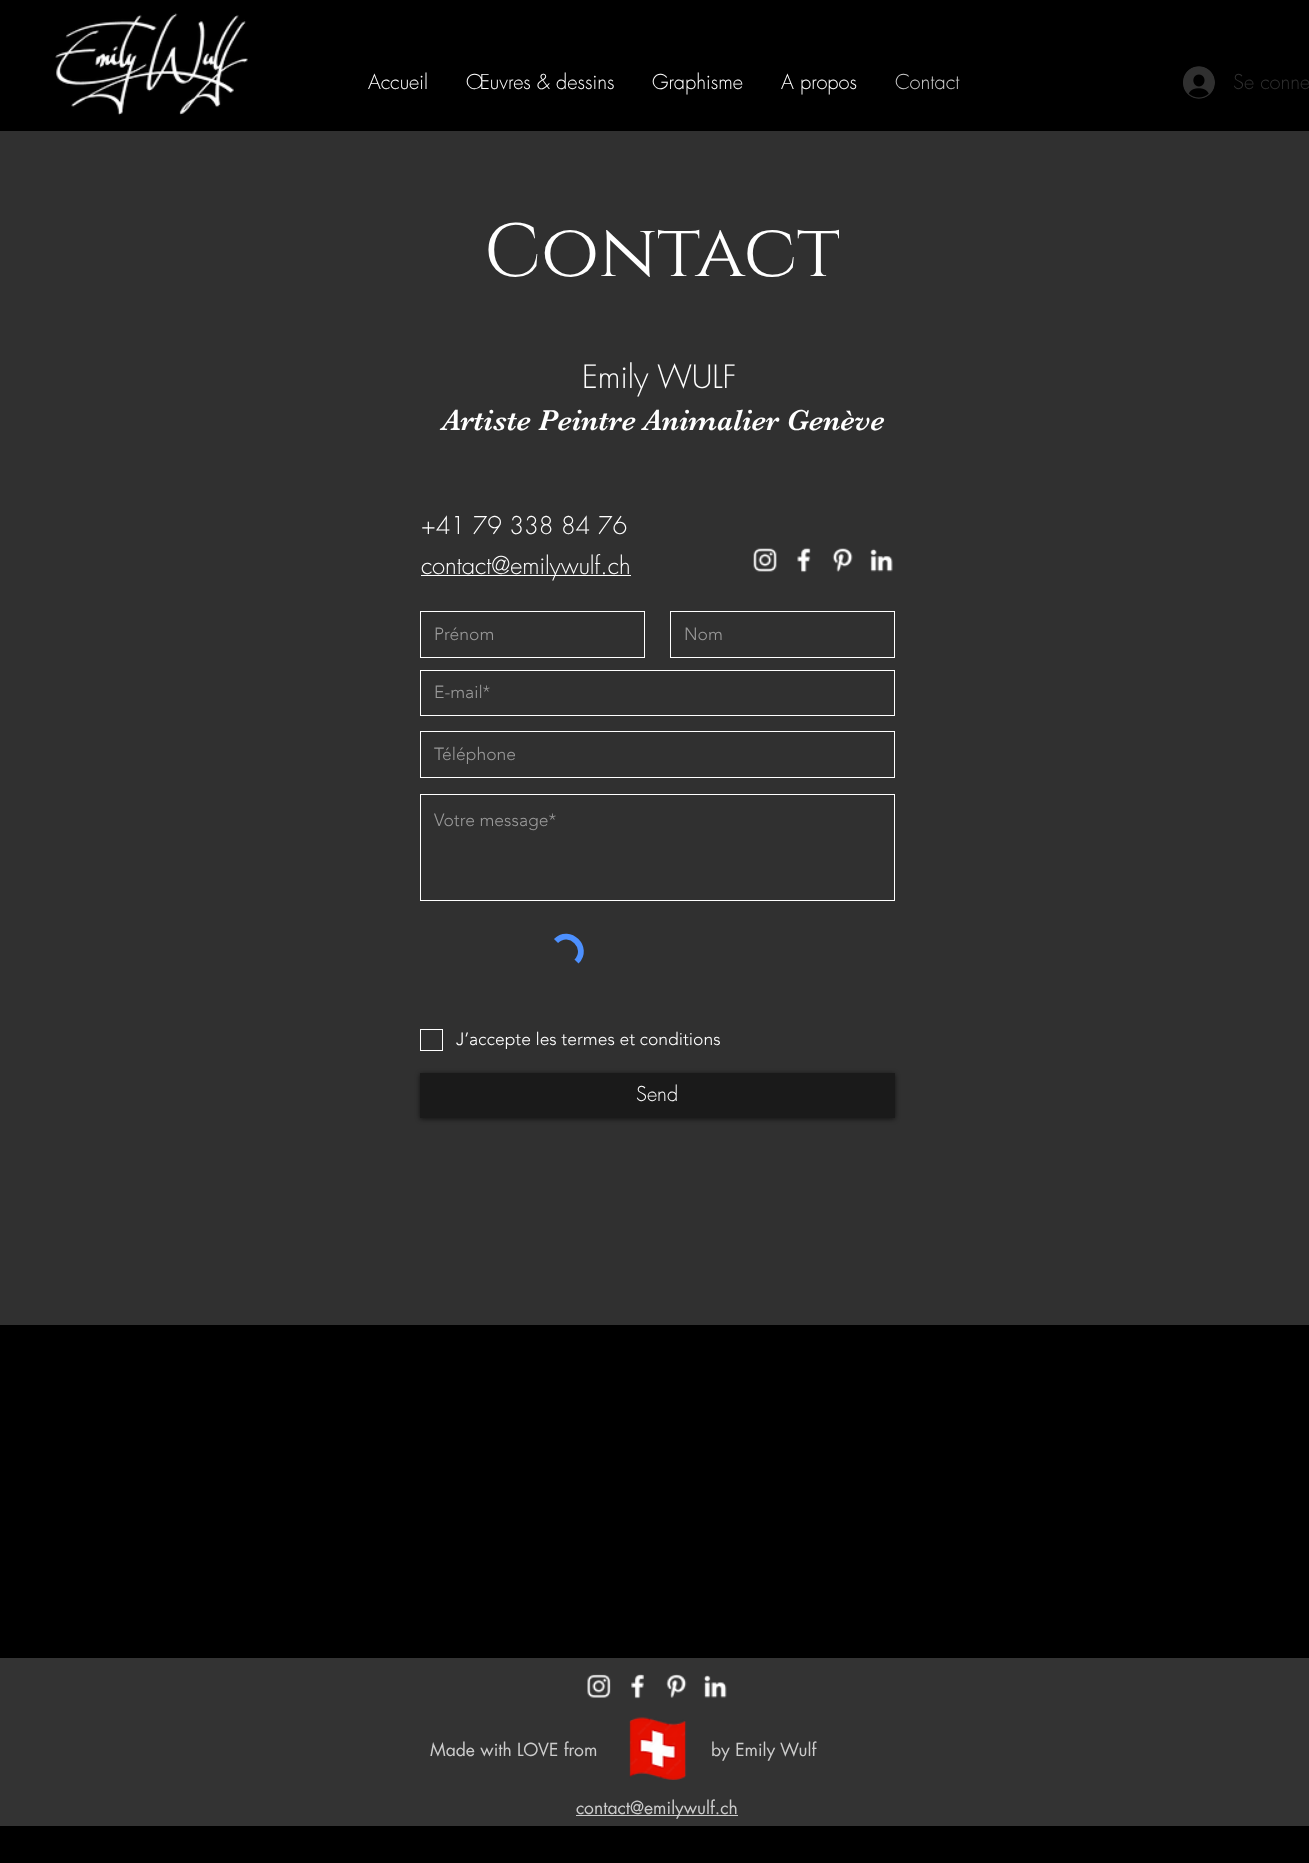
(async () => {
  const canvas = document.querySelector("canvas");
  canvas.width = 1309;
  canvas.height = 1863;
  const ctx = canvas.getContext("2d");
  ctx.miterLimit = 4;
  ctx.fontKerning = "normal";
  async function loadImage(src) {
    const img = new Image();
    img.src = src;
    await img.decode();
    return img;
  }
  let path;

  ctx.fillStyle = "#000000";
  ctx.fillRect(0, 0, 1309, 1863);
  ctx.drawImage(await loadImage("img/1.png"), 55, 13, 193, 103);
  ctx.drawImage(await loadImage("img/2.png"), 1183, 66, 32, 33);
  ctx.fillStyle = "#303030";
  ctx.fillRect(0, 131, 1309, 1194);
  ctx.fillStyle = "#ffffff";
  ctx.fillRect(421, 575, 210, 1);
  ctx.drawImage(await loadImage("img/3.png"), 753, 548, 24, 24);
  ctx.drawImage(await loadImage("img/4.png"), 797, 547, 14, 26);
  ctx.drawImage(await loadImage("img/5.png"), 832, 548, 21, 24);
  ctx.drawImage(await loadImage("img/6.png"), 870, 548, 23, 24);
  ctx.strokeStyle = "#ffffff";
  ctx.strokeRect(420.5, 611.5, 224, 46);
  ctx.strokeRect(670.5, 611.5, 224, 46);
  ctx.strokeRect(420.5, 670.5, 474, 45);
  ctx.strokeRect(420.5, 731.5, 474, 46);
  ctx.strokeRect(420.5, 794.5, 474, 106);
  path = new Path2D("M556 941C569.5 927.5 590 948 576.5 961.5");
  ctx.strokeStyle = "#4d90fe";
  ctx.lineWidth = 5.8;
  ctx.stroke(path);
  ctx.strokeStyle = "#ffffff";
  ctx.lineWidth = 1;
  ctx.strokeRect(420.5, 1029.5, 22, 21);
  ctx.fillStyle = "rgba(0, 0, 0, 0.6)";
  ctx.filter = "blur(2.5px)";
  ctx.beginPath();
  ctx.rect(420, 1074, 475, 45);
  ctx.fill();
  ctx.filter = "none";
  ctx.fillStyle = "#1a1a1a";
  ctx.fillRect(420, 1073, 475, 45);
  ctx.fillStyle = "#333333";
  ctx.fillRect(0, 1658, 1309, 168);
  ctx.drawImage(await loadImage("img/7.png"), 587, 1674, 24, 24);
  ctx.drawImage(await loadImage("img/8.png"), 631, 1674, 13, 25);
  ctx.drawImage(await loadImage("img/9.png"), 666, 1674, 21, 24);
  ctx.drawImage(await loadImage("img/10.png"), 703, 1675, 24, 23);
  ctx.drawImage(await loadImage("img/11.png"), 629, 1717, 58, 63);
  ctx.fillStyle = "#cccccc";
  ctx.fillRect(576, 1815, 162, 1);
  ctx.font = "300 20px futura";
  ctx.fillStyle = "#ffffff";
  for (const [text, x, y] of [
    ["Accueil", 368, 89],
    ["Œuvres & dessins", 466, 89],
    ["Graphisme", 652, 89],
    ["A propos", 781, 89],
  ]) {
    ctx.fillText(text, x, y);
  }
  ctx.fillStyle = "#cccccc";
  ctx.fillText("Contact", 895, 89);
  ctx.fillStyle = "#303030";
  ctx.fillText("Se conne", 1233, 89);
  ctx.font = "75px Cinzel";
  ctx.fillStyle = "#ffffff";
  ctx.fillText("Contact", 484, 276);
  ctx.font = "300 31.25px futura";
  ctx.fillText("Emily WULF", 582, 388);
  ctx.font = "30px 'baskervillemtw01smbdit'";
  ctx.fillText("Artiste Peintre Animalier Genève", 442, 430);
  ctx.font = "300 23.75px futura";
  ctx.fillText("+41 79 338 84 76", 421, 534);
  ctx.fillText("contact@emilywulf.ch", 421, 574);
  ctx.font = "300 17.5px 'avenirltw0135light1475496'";
  ctx.fillStyle = "#999999";
  for (const [text, x, y] of [
    ["Prénom", 434, 640],
    ["Nom", 684, 640],
    ["E-mail*", 434, 698],
    ["Téléphone", 434, 760],
    ["Votre message*", 434, 826],
  ]) {
    ctx.fillText(text, x, y);
  }
  ctx.fillStyle = "#ffffff";
  ctx.fillText("J’accepte les termes et conditions", 456, 1045);
  ctx.font = "300 20px futura";
  ctx.fillText("Send", 636, 1101);
  ctx.font = "17.5px futura";
  ctx.fillStyle = "#cccccc";
  for (const [text, x, y] of [
    ["Made with LOVE from", 430, 1756],
    ["by Emily Wulf", 711, 1756],
    ["contact@emilywulf.ch", 576, 1814],
  ]) {
    ctx.fillText(text, x, y);
  }
})();
